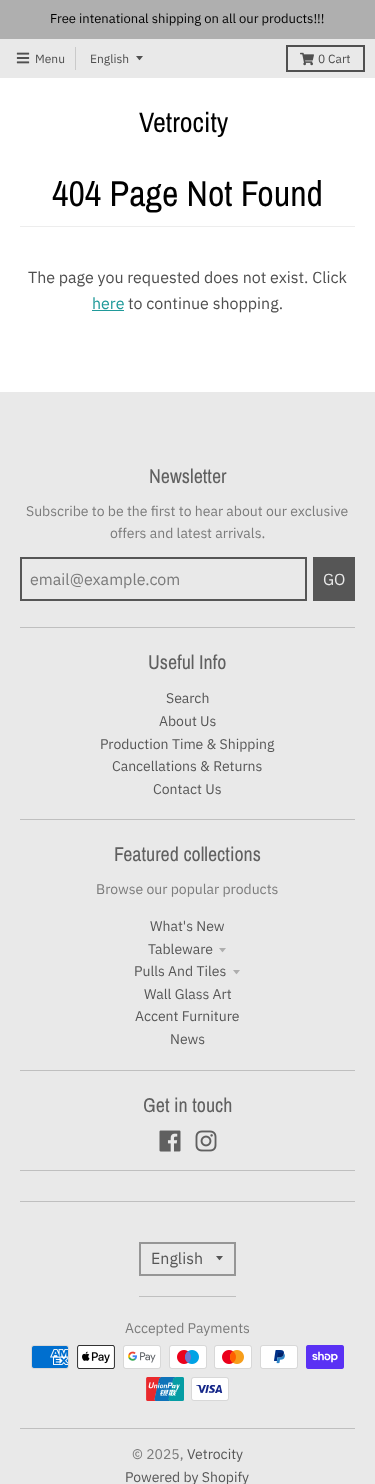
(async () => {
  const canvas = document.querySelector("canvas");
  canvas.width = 375;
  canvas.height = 1484;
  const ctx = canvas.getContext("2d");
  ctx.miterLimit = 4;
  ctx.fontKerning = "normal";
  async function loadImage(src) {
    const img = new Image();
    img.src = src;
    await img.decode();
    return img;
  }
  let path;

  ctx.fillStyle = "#ffffff";
  ctx.fillRect(0, 0, 375, 1484);
  ctx.fillStyle = "#afafaf";
  ctx.fillRect(0, 0, 375, 39);
  ctx.fillStyle = "#e9e9e9";
  ctx.fillRect(0, 39, 375, 39);
  ctx.drawImage(await loadImage("img/1.png"), 16, 52, 14, 12);
  ctx.fillStyle = "#cacaca";
  ctx.fillRect(75, 47, 1, 23);
  ctx.fillStyle = "#505050";
  path = new Path2D("M136 56C140.5 61.5 138.5 61.5 143 56Z");
  ctx.fill(path);
  ctx.strokeStyle = "#505050";
  ctx.lineWidth = 2;
  ctx.strokeRect(287, 46, 77, 25);
  ctx.drawImage(await loadImage("img/2.png"), 300, 52, 14, 14);
  for (const [x, y, w, h, color] of [
    [20, 226, 335, 1, "#ededed"],
    [92, 310, 32, 1, "#209a9a"],
    [0, 392, 375, 1092, "#e9e9e9"],
    [20, 627, 335, 1, "#bfbfbf"],
  ]) {
    ctx.fillStyle = color;
    ctx.fillRect(x, y, w, h);
  }
  ctx.strokeStyle = "#565656";
  ctx.strokeRect(21, 558, 285, 42);
  for (const [x, y, w, h, color] of [
    [313, 557, 42, 44, "#565656"],
    [20, 819, 335, 1, "#bfbfbf"],
    [20, 1070, 335, 1, "#bfbfbf"],
  ]) {
    ctx.fillStyle = color;
    ctx.fillRect(x, y, w, h);
  }
  ctx.fillStyle = "#aeaeae";
  path = new Path2D("M219 948C223.5 953.5 221.5 953.5 226 948Z");
  ctx.fill(path);
  path = new Path2D("M233 970C237.5 975.5 235.5 975.5 240 970Z");
  ctx.fill(path);
  ctx.drawImage(await loadImage("img/3.png"), 159, 1130, 22, 22);
  ctx.drawImage(await loadImage("img/4.png"), 195, 1130, 22, 22);
  for (const [x, y, w, h, color] of [
    [20, 1170, 335, 1, "#bfbfbf"],
    [20, 1201, 335, 1, "#bfbfbf"],
    [139, 1296, 97, 1, "#bfbfbf"],
  ]) {
    ctx.fillStyle = color;
    ctx.fillRect(x, y, w, h);
  }
  ctx.fillStyle = "#565656";
  path = new Path2D("M216 1256C220.5 1261.5 218.5 1261.5 223 1256Z");
  ctx.fill(path);
  ctx.strokeStyle = "#969696";
  ctx.strokeRect(140, 1243, 95, 32);
  ctx.fillStyle = "#bfbfbf";
  ctx.fillRect(20, 1428, 335, 1);
  ctx.drawImage(await loadImage("img/5.png"), 31, 1345, 38, 24);
  ctx.drawImage(await loadImage("img/6.png"), 77, 1345, 38, 24);
  ctx.drawImage(await loadImage("img/7.png"), 123, 1345, 38, 24);
  ctx.drawImage(await loadImage("img/8.png"), 169, 1345, 38, 24);
  ctx.drawImage(await loadImage("img/9.png"), 214, 1345, 38, 24);
  ctx.drawImage(await loadImage("img/10.png"), 260, 1345, 38, 24);
  ctx.drawImage(await loadImage("img/11.png"), 306, 1345, 38, 24);
  ctx.drawImage(await loadImage("img/12.png"), 146, 1377, 38, 24);
  ctx.drawImage(await loadImage("img/13.png"), 191, 1377, 38, 24);
  ctx.font = "13px IBM Plex Sans";
  ctx.fillStyle = "#000000";
  ctx.fillText("Free intenational shipping on all our products!!!", 50, 23);
  ctx.font = "12px IBM Plex Sans";
  ctx.fillStyle = "#4f4f4f";
  for (const [text, x, y] of [
    ["Menu", 35, 63],
    ["English", 90, 63],
    ["0 Cart", 318, 63],
  ]) {
    ctx.fillText(text, x, y);
  }
  ctx.font = "28px Archivo Narrow";
  ctx.fillStyle = "#000000";
  ctx.fillText("Vetrocity", 139, 132);
  ctx.font = "36px Archivo Narrow";
  ctx.fillText("404 Page Not Found", 52, 206);
  ctx.font = "16px IBM Plex Sans";
  ctx.fillStyle = "#4f4f4f";
  ctx.fillText("The page you requested does not exist. Click", 28, 283);
  ctx.fillStyle = "#209a9a";
  ctx.fillText("here", 92, 309);
  ctx.fillStyle = "#4f4f4f";
  ctx.fillText("to continue shopping.", 128, 309);
  ctx.font = "20px Archivo Narrow";
  ctx.fillStyle = "#606060";
  ctx.fillText("Newsletter", 149, 483);
  ctx.font = "14px IBM Plex Sans";
  ctx.fillStyle = "#7b7b7b";
  ctx.fillText("Subscribe to be the first to hear about our exclusive", 26, 516);
  ctx.fillText("offers and latest arrivals.", 110, 538);
  ctx.font = "16px IBM Plex Sans";
  ctx.fillText("email@example.com", 30, 585);
  ctx.fillStyle = "#e9e9e9";
  ctx.fillText("GO", 323, 585);
  ctx.font = "20px Archivo Narrow";
  ctx.fillStyle = "#606060";
  ctx.fillText("Useful Info", 148, 669);
  ctx.font = "14px IBM Plex Sans";
  ctx.fillStyle = "#565656";
  for (const [text, x, y] of [
    ["Search", 166, 703],
    ["About Us", 159, 726],
    ["Production Time & Shipping", 100, 749],
    ["Cancellations & Returns", 112, 771],
    ["Contact Us", 153, 794],
  ]) {
    ctx.fillText(text, x, y);
  }
  ctx.font = "20px Archivo Narrow";
  ctx.fillStyle = "#606060";
  ctx.fillText("Featured collections", 114, 861);
  ctx.font = "14px IBM Plex Sans";
  ctx.fillStyle = "#7b7b7b";
  ctx.fillText("Browse our popular products", 96, 894);
  ctx.fillStyle = "#565656";
  for (const [text, x, y] of [
    ["What's New", 150, 931],
    ["Tableware", 148, 954],
    ["Pulls And Tiles", 134, 976],
    ["Wall Glass Art", 144, 999],
    ["Accent Furniture", 135, 1021],
    ["News", 170, 1044],
  ]) {
    ctx.fillText(text, x, y);
  }
  ctx.font = "20px Archivo Narrow";
  ctx.fillStyle = "#606060";
  ctx.fillText("Get in touch", 143, 1112);
  ctx.font = "16px IBM Plex Sans";
  ctx.fillStyle = "#565656";
  ctx.fillText("English", 151, 1264);
  ctx.font = "14px IBM Plex Sans";
  ctx.fillStyle = "#7b7b7b";
  ctx.fillText("Accepted Payments", 125, 1333);
  ctx.fillText("© 2025,", 132, 1459);
  ctx.fillStyle = "#565656";
  ctx.fillText("Vetrocity", 187, 1459);
  ctx.fillText("Powered by Shopify", 125, 1482);
})();
